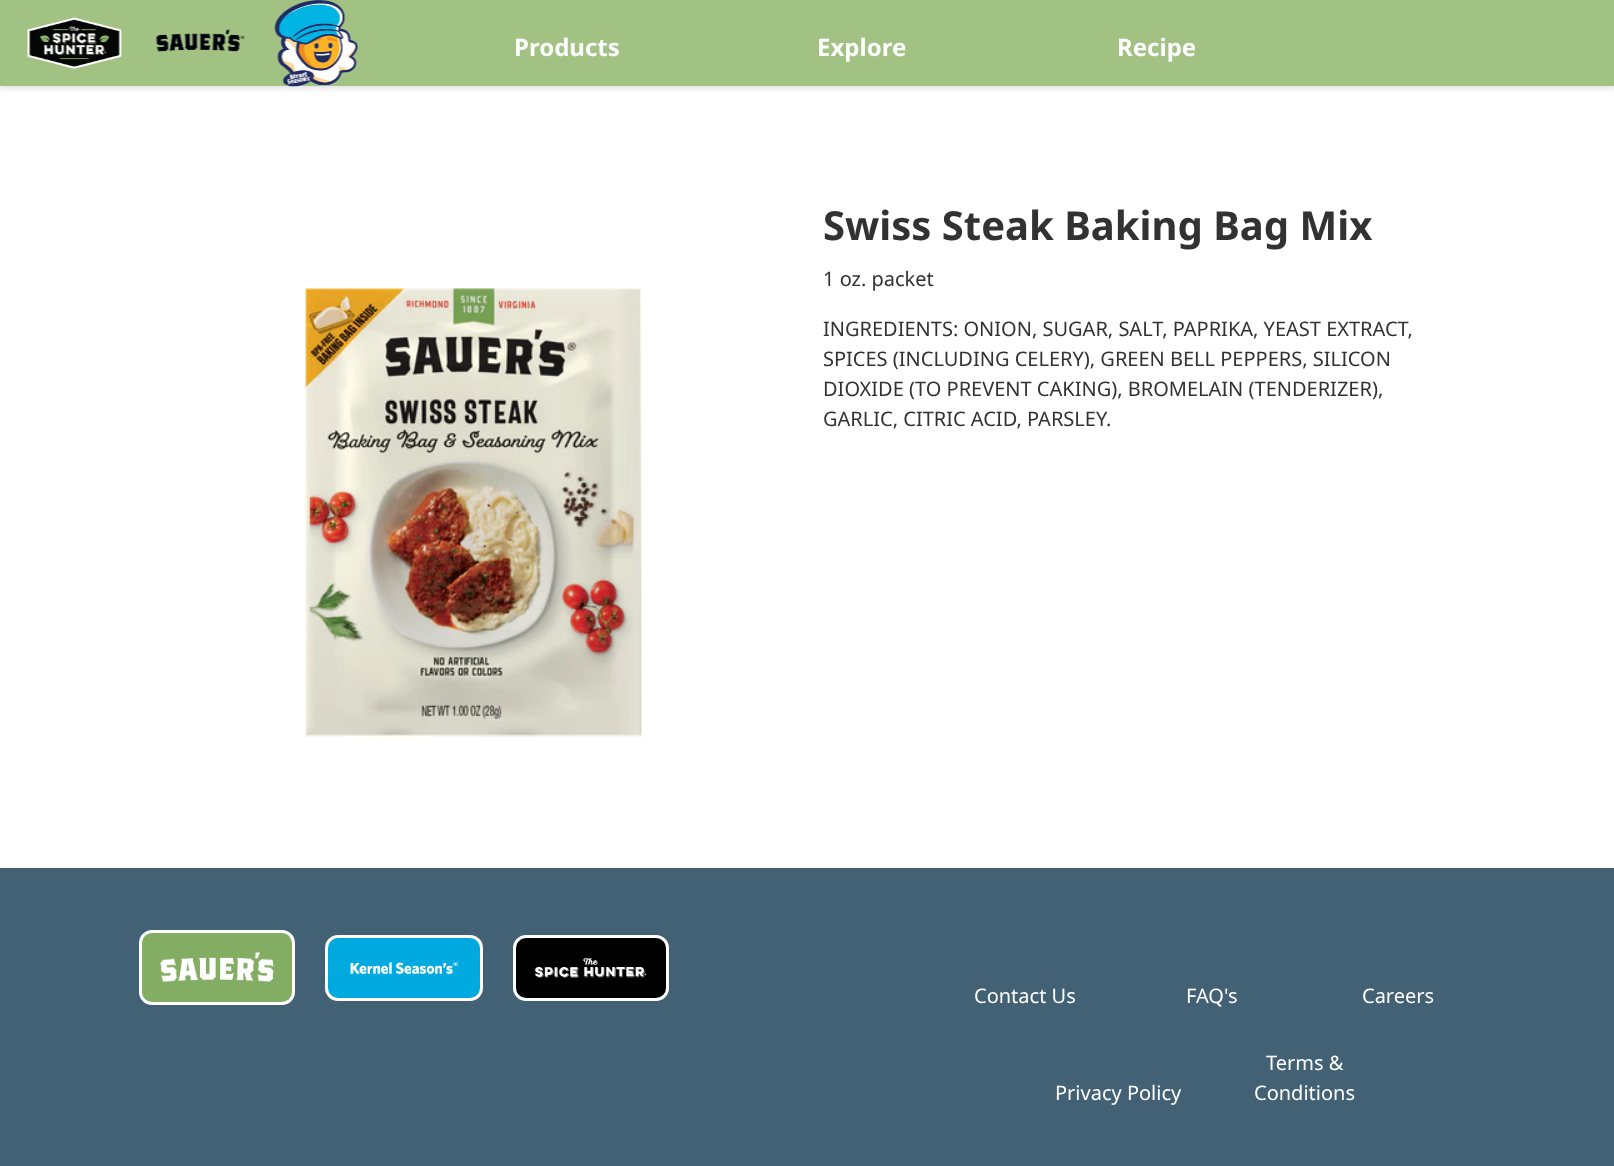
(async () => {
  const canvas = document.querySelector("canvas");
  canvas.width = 1614;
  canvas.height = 1166;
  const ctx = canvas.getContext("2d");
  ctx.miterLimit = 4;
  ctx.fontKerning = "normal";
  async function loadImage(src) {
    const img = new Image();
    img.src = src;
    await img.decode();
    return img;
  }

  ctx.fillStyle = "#ffffff";
  ctx.fillRect(0, 0, 1614, 1166);
  ctx.fillStyle = "rgba(0, 0, 0, 0.1)";
  ctx.filter = "blur(2.5px)";
  ctx.beginPath();
  ctx.rect(0, 3, 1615, 86);
  ctx.fill();
  ctx.filter = "none";
  ctx.fillStyle = "#a1c283";
  ctx.fillRect(0, 0, 1614, 86);
  ctx.drawImage(await loadImage("img/1.png"), 27, 17, 95, 52);
  ctx.drawImage(await loadImage("img/2.png"), 155, 29, 90, 23);
  ctx.drawImage(await loadImage("img/3.png"), 274, 0, 84, 87);
  ctx.drawImage(await loadImage("img/4.png"), 304, 288, 338, 450);
  ctx.fillStyle = "#436174";
  ctx.fillRect(0, 868, 1614, 298);
  ctx.fillStyle = "#84ad64";
  ctx.beginPath();
  ctx.roundRect(140.5, 931.5, 153, 72, 11.5);
  ctx.fill();
  ctx.strokeStyle = "#ffffff";
  ctx.lineWidth = 3;
  ctx.stroke();
  ctx.drawImage(await loadImage("img/5.png"), 160, 952, 114, 30);
  ctx.fillStyle = "#00a9e0";
  ctx.beginPath();
  ctx.roundRect(326.5, 936.5, 155, 63, 11.5);
  ctx.fill();
  ctx.stroke();
  ctx.drawImage(await loadImage("img/6.png"), 350, 961, 108, 14);
  ctx.fillStyle = "#000000";
  ctx.beginPath();
  ctx.roundRect(514.5, 936.5, 153, 63, 11.5);
  ctx.fill();
  ctx.stroke();
  ctx.drawImage(await loadImage("img/7.png"), 534, 957, 113, 21);
  ctx.font = "bold 24px Noto Sans";
  ctx.fillStyle = "#ffffff";
  for (const [text, x, y] of [
    ["Products", 514, 56],
    ["Explore", 817, 56],
    ["Recipe", 1117, 56],
  ]) {
    ctx.fillText(text, x, y);
  }
  ctx.font = "bold 40px Noto Sans";
  ctx.fillStyle = "#333232";
  ctx.fillText("Swiss Steak Baking Bag Mix", 823, 240);
  ctx.font = "20px Noto Sans";
  for (const [text, x, y] of [
    ["1 oz. packet", 823, 286],
    ["INGREDIENTS: ONION, SUGAR, SALT, PAPRIKA, YEAST EXTRACT,", 823, 336],
    ["SPICES (INCLUDING CELERY), GREEN BELL PEPPERS, SILICON", 823, 366],
    ["DIOXIDE (TO PREVENT CAKING), BROMELAIN (TENDERIZER),", 823, 396],
    ["GARLIC, CITRIC ACID, PARSLEY.", 823, 426],
  ]) {
    ctx.fillText(text, x, y);
  }
  ctx.fillStyle = "#ffffff";
  for (const [text, x, y] of [
    ["Contact Us", 974, 1003],
    ["FAQ's", 1186, 1003],
    ["Careers", 1362, 1003],
    ["Privacy Policy", 1055, 1100],
    ["Terms &", 1266, 1070],
    ["Conditions", 1254, 1100],
  ]) {
    ctx.fillText(text, x, y);
  }
})();
